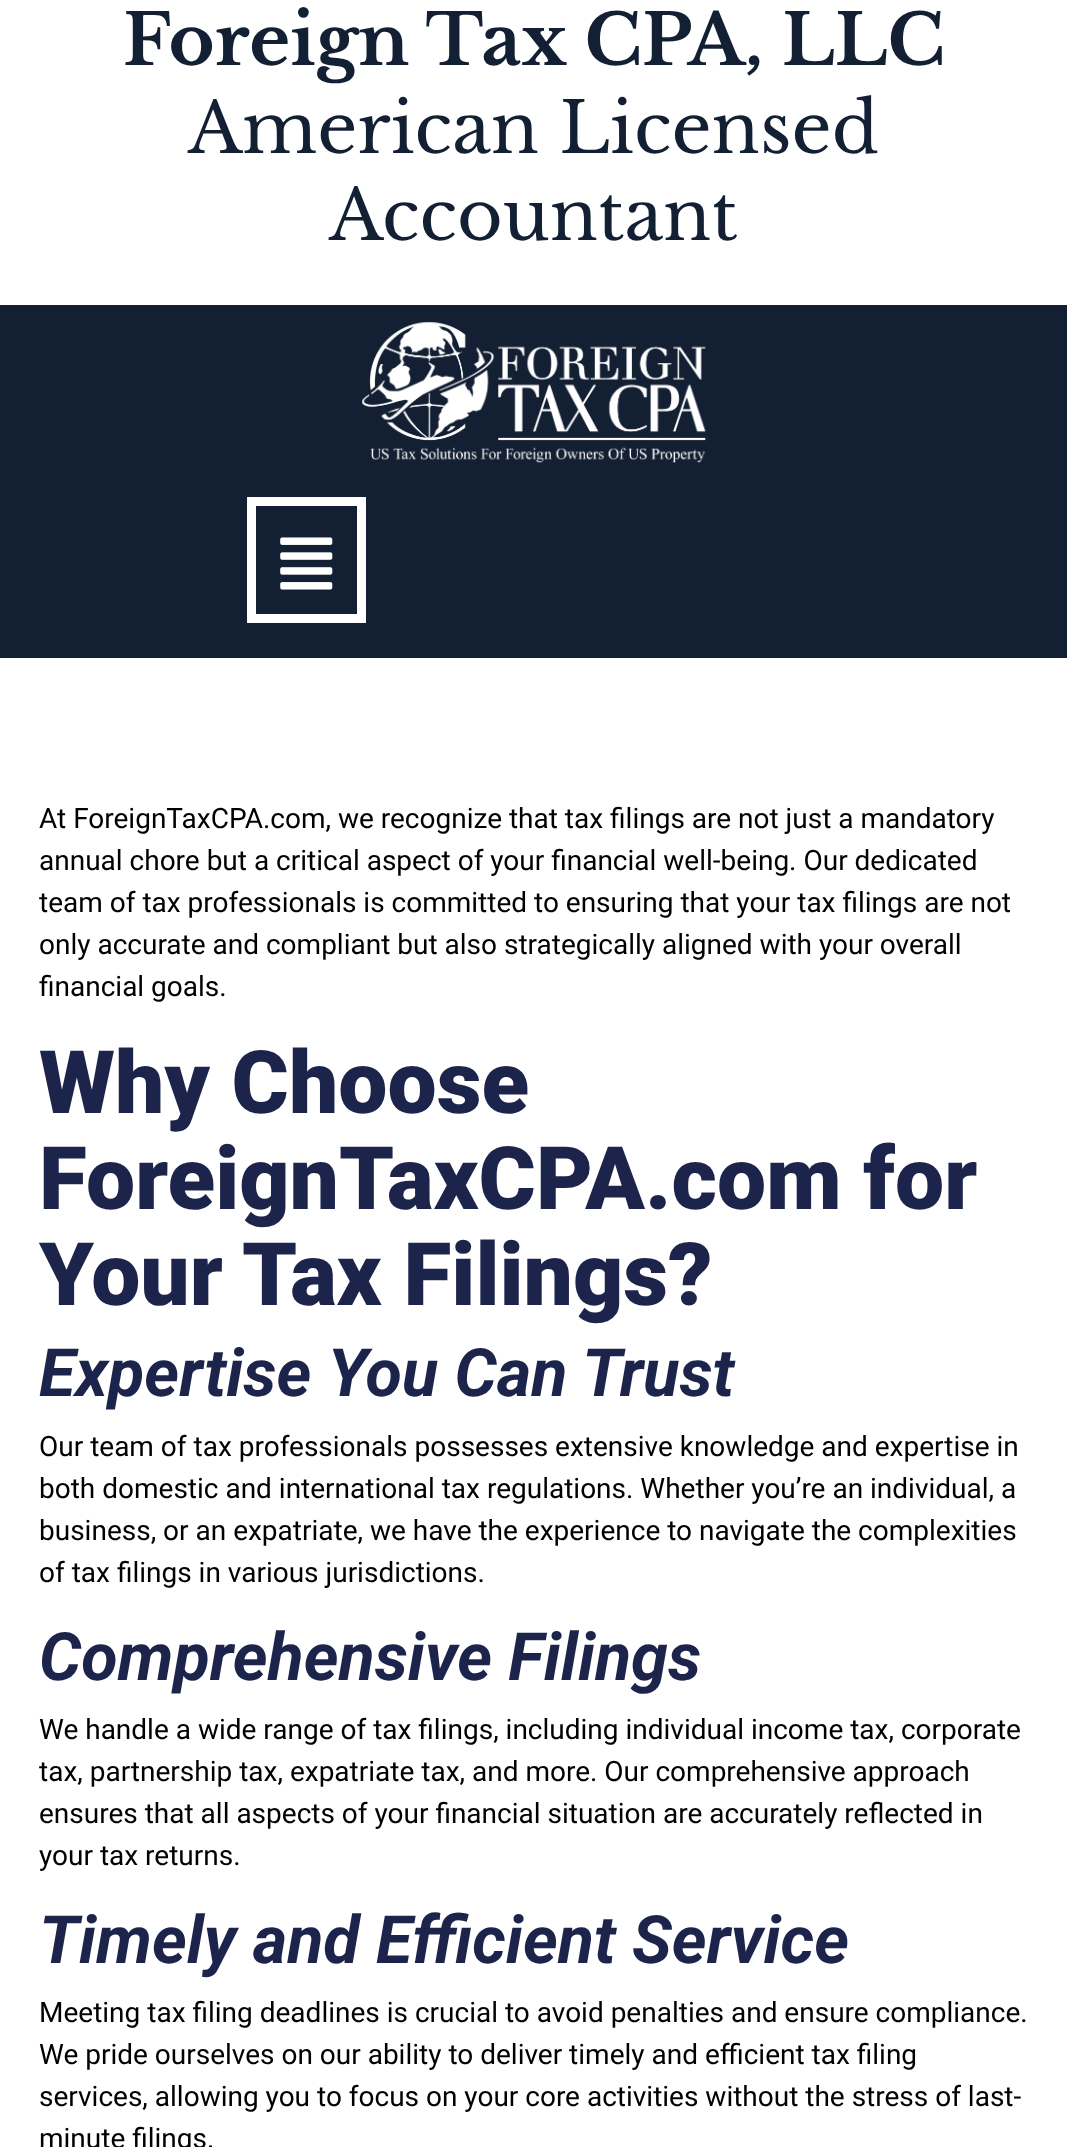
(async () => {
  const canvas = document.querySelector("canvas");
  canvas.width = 1067;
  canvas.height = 2147;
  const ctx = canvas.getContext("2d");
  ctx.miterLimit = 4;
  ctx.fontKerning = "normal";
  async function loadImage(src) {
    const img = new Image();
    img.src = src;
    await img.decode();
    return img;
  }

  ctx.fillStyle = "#ffffff";
  ctx.fillRect(0, 0, 1067, 2147);
  ctx.fillStyle = "#132033";
  ctx.fillRect(0, 305, 1067, 353);
  ctx.drawImage(await loadImage("img/1.png"), 362, 322, 344, 141);
  ctx.strokeStyle = "#ffffff";
  ctx.lineWidth = 9;
  ctx.strokeRect(251.5, 501.5, 110, 117);
  ctx.drawImage(await loadImage("img/2.png"), 280, 537, 53, 53);
  ctx.font = "bold 70px Libre Baskerville";
  ctx.fillText("Foreign Tax CPA, LLC", 123, 65);
  ctx.font = "70px Libre Baskerville";
  ctx.fillText("American Licensed", 188, 153);
  ctx.fillText("Accountant", 329, 240);
  ctx.font = "28px Roboto";
  ctx.fillStyle = "#000000";
  for (const [text, x, y] of [
    ["At ForeignTaxCPA.com, we recognize that tax filings are not just a mandatory", 39, 828],
    ["annual chore but a critical aspect of your financial well-being. Our dedicated", 39, 870],
    ["team of tax professionals is committed to ensuring that your tax filings are not", 39, 912],
    ["only accurate and compliant but also strategically aligned with your overall", 39, 954],
    ["financial goals.", 39, 996],
  ]) {
    ctx.fillText(text, x, y);
  }
  ctx.font = "900 87.5px Roboto";
  ctx.fillStyle = "#1c244b";
  for (const [text, x, y] of [
    ["Why Choose", 39, 1113],
    ["ForeignTaxCPA.com for", 39, 1209],
    ["Your Tax Filings?", 39, 1305],
  ]) {
    ctx.fillText(text, x, y);
  }
  ctx.font = "italic bold 66.5px Roboto";
  ctx.fillText("Expertise You Can Trust", 39, 1396);
  ctx.font = "28px Roboto";
  ctx.fillStyle = "#000000";
  for (const [text, x, y] of [
    ["Our team of tax professionals possesses extensive knowledge and expertise in", 39, 1456],
    ["both domestic and international tax regulations. Whether you’re an individual, a", 39, 1498],
    ["business, or an expatriate, we have the experience to navigate the complexities", 39, 1540],
    ["of tax filings in various jurisdictions.", 39, 1582],
  ]) {
    ctx.fillText(text, x, y);
  }
  ctx.font = "italic bold 66.5px Roboto";
  ctx.fillStyle = "#1c244b";
  ctx.fillText("Comprehensive Filings", 39, 1680);
  ctx.font = "28px Roboto";
  ctx.fillStyle = "#000000";
  for (const [text, x, y] of [
    ["We handle a wide range of tax filings, including individual income tax, corporate", 39, 1739],
    ["tax, partnership tax, expatriate tax, and more. Our comprehensive approach", 39, 1781],
    ["ensures that all aspects of your financial situation are accurately reflected in", 39, 1823],
    ["your tax returns.", 39, 1865],
  ]) {
    ctx.fillText(text, x, y);
  }
  ctx.font = "italic bold 66.5px Roboto";
  ctx.fillStyle = "#1c244b";
  ctx.fillText("Timely and Efficient Service", 39, 1963);
  ctx.font = "28px Roboto";
  ctx.fillStyle = "#000000";
  for (const [text, x, y] of [
    ["Meeting tax filing deadlines is crucial to avoid penalties and ensure compliance.", 39, 2022],
    ["We pride ourselves on our ability to deliver timely and efficient tax filing", 39, 2064],
    ["services, allowing you to focus on your core activities without the stress of last-", 39, 2106],
    ["minute filings.", 39, 2148],
  ]) {
    ctx.fillText(text, x, y);
  }
})();
